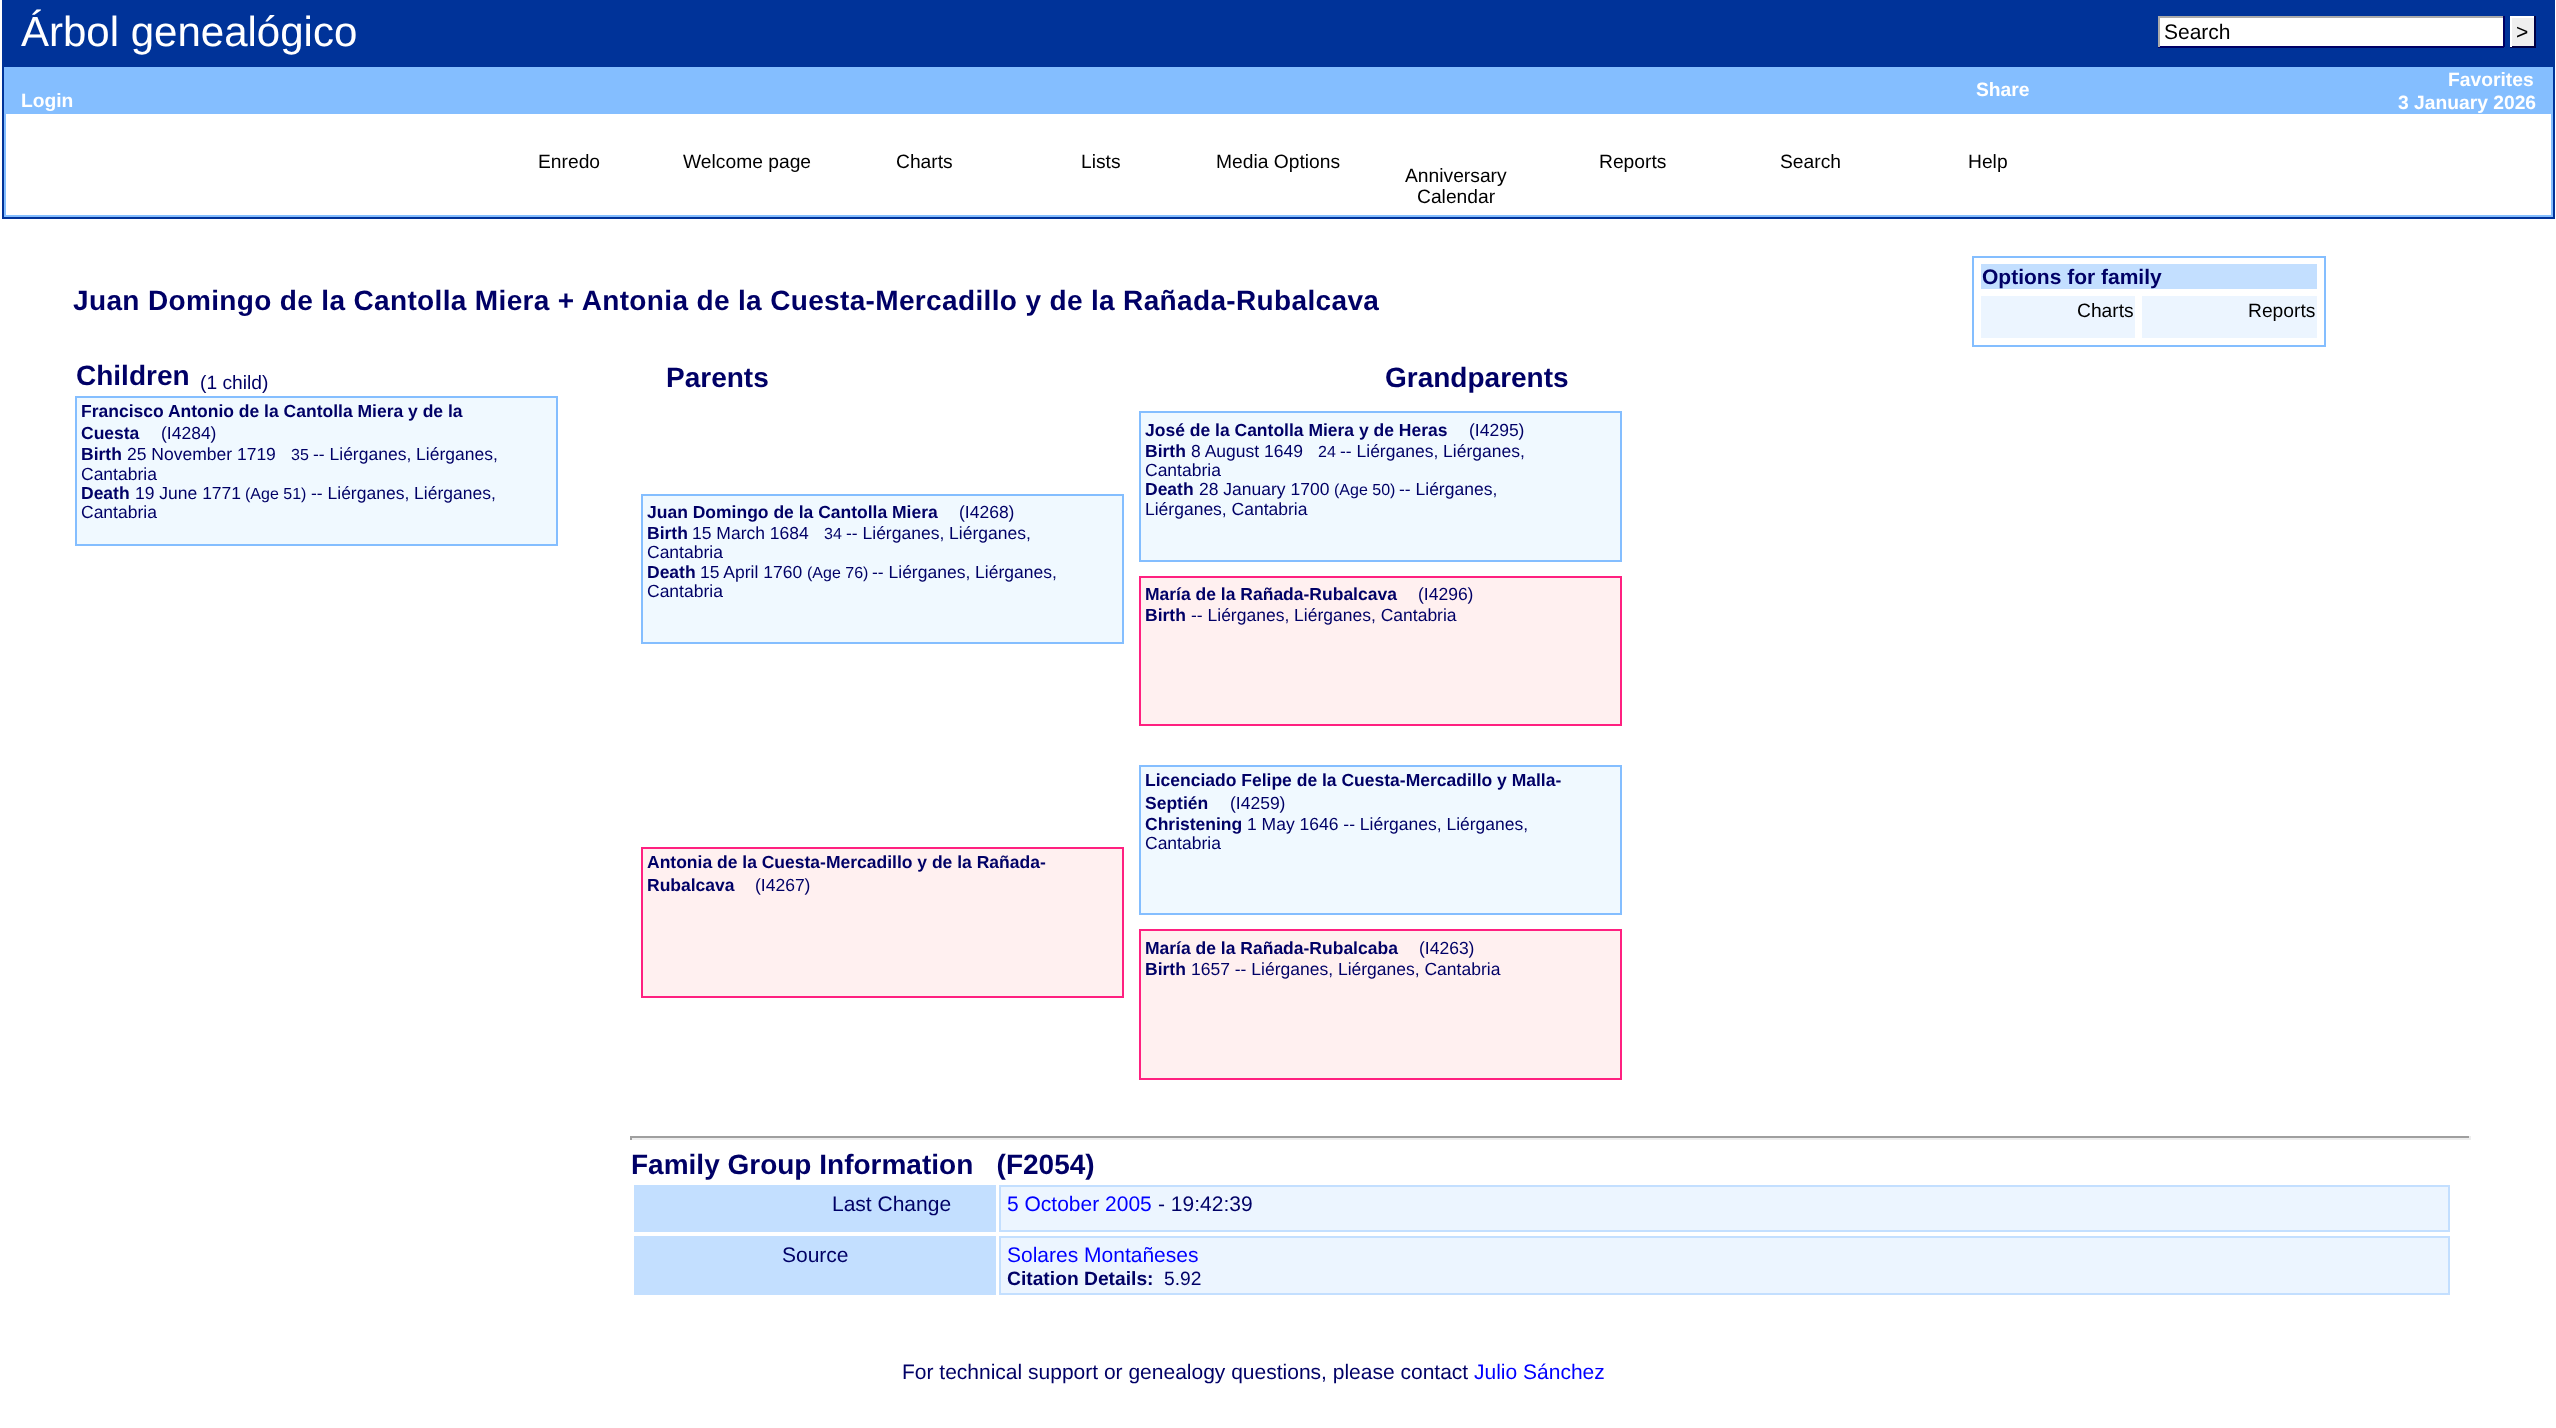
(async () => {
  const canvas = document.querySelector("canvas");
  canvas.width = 2556;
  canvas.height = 1428;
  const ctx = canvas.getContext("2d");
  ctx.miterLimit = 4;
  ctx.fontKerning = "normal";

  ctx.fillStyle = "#ffffff";
  ctx.fillRect(0, 0, 2556, 1428);
  for (const [x, y, w, h, color] of [
    [2, 0, 2553, 219, "#003399"],
    [2160, 18, 343, 28, "#ffffff"],
    [2158, 16, 346, 2, "#aaaaaa"],
    [2503, 16, 2, 31, "#000066"],
    [2158, 46, 346, 2, "#000066"],
    [2158, 16, 2, 31, "#aaaaaa"],
    [2512, 18, 22, 28, "#efefef"],
    [2510, 16, 26, 2, "#ffffff"],
    [2534, 16, 2, 31, "#000044"],
    [2510, 46, 26, 2, "#000044"],
    [2510, 16, 2, 31, "#ffffff"],
    [4, 67, 2549, 45, "#84beff"],
  ]) {
    ctx.fillStyle = color;
    ctx.fillRect(x, y, w, h);
  }
  ctx.fillStyle = "#ffffff";
  ctx.beginPath();
  ctx.rect(5, 113, 2547, 103);
  ctx.fill();
  ctx.strokeStyle = "#84beff";
  ctx.lineWidth = 2;
  ctx.stroke();
  ctx.strokeRect(1973, 257, 352, 89);
  for (const [x, y, w, h, color] of [
    [1981, 264, 336, 25, "#c3dfff"],
    [1981, 296, 154, 42, "#ecf5ff"],
    [2142, 296, 175, 42, "#ecf5ff"],
  ]) {
    ctx.fillStyle = color;
    ctx.fillRect(x, y, w, h);
  }
  ctx.fillStyle = "#f0f9ff";
  ctx.beginPath();
  ctx.rect(76, 397, 481, 148);
  ctx.fill();
  ctx.stroke();
  ctx.beginPath();
  ctx.rect(1140, 412, 481, 149);
  ctx.fill();
  ctx.stroke();
  ctx.beginPath();
  ctx.rect(642, 495, 481, 148);
  ctx.fill();
  ctx.stroke();
  ctx.fillStyle = "#fff0f0";
  ctx.beginPath();
  ctx.rect(1140, 577, 481, 148);
  ctx.fill();
  ctx.strokeStyle = "#ff2080";
  ctx.stroke();
  ctx.fillStyle = "#f0f9ff";
  ctx.beginPath();
  ctx.rect(1140, 766, 481, 148);
  ctx.fill();
  ctx.strokeStyle = "#84beff";
  ctx.stroke();
  ctx.fillStyle = "#fff0f0";
  ctx.beginPath();
  ctx.rect(642, 848, 481, 149);
  ctx.fill();
  ctx.strokeStyle = "#ff2080";
  ctx.stroke();
  ctx.beginPath();
  ctx.rect(1140, 930, 481, 149);
  ctx.fill();
  ctx.stroke();
  for (const [x, y, w, h, color] of [
    [630, 1136, 1841, 2, "#9f9f9f"],
    [2469, 1136, 2, 4, "#eeeeee"],
    [630, 1138, 1841, 2, "#eeeeee"],
    [630, 1136, 2, 4, "#9f9f9f"],
    [634, 1185, 362, 47, "#c3dfff"],
  ]) {
    ctx.fillStyle = color;
    ctx.fillRect(x, y, w, h);
  }
  ctx.fillStyle = "#ecf5ff";
  ctx.beginPath();
  ctx.rect(1000, 1186, 1449, 45);
  ctx.fill();
  ctx.strokeStyle = "#c3dfff";
  ctx.stroke();
  ctx.fillStyle = "#c3dfff";
  ctx.fillRect(634, 1236, 362, 59);
  ctx.fillStyle = "#ecf5ff";
  ctx.beginPath();
  ctx.rect(1000, 1237, 1449, 57);
  ctx.fill();
  ctx.stroke();
  ctx.font = "42px Liberation Sans";
  ctx.fillStyle = "#ffffff";
  ctx.fillText("Árbol genealógico", 21, 46);
  ctx.font = "21px Liberation Sans";
  ctx.fillStyle = "#000000";
  ctx.fillText("Search", 2164, 39);
  ctx.fillText(">", 2516, 39);
  ctx.font = "bold 19.25px Liberation Sans";
  ctx.fillStyle = "#ffffff";
  for (const [text, x, y] of [
    ["Share", 1976, 96],
    ["Favorites", 2448, 86],
    ["3 January 2026", 2398, 109],
    ["Login", 21, 107],
  ]) {
    ctx.fillText(text, x, y);
  }
  ctx.font = "19.25px Liberation Sans";
  ctx.fillStyle = "#000000";
  for (const [text, x, y] of [
    ["Enredo", 538, 168],
    ["Welcome page", 683, 168],
    ["Charts", 896, 168],
    ["Lists", 1081, 168],
    ["Media Options", 1216, 168],
    ["Reports", 1599, 168],
    ["Search", 1780, 168],
    ["Help", 1968, 168],
    ["Anniversary", 1405, 182],
    ["Calendar", 1417, 203],
  ]) {
    ctx.fillText(text, x, y);
  }
  ctx.letterSpacing = "0.35px";
  ctx.font = "bold 28px Liberation Sans";
  ctx.fillStyle = "#000066";
  ctx.fillText("Juan Domingo de la Cantolla Miera + Antonia de la Cuesta-Mercadillo y de la Rañada-Rubalcava", 73, 310);
  ctx.letterSpacing = "0px";
  ctx.font = "bold 21px Liberation Sans";
  ctx.fillText("Options for family", 1982, 284);
  ctx.font = "19.25px Liberation Sans";
  ctx.fillStyle = "#000000";
  ctx.fillText("Charts", 2077, 317);
  ctx.fillText("Reports", 2248, 317);
  ctx.font = "bold 28px Liberation Sans";
  ctx.fillStyle = "#000066";
  ctx.fillText("Children", 76, 385);
  ctx.font = "19.25px Liberation Sans";
  ctx.fillText("(1 child)", 200, 389);
  ctx.font = "bold 17.5px Liberation Sans";
  ctx.fillText("Francisco Antonio de la Cantolla Miera y de la", 81, 417);
  ctx.fillText("Cuesta", 81, 439);
  ctx.font = "17.5px Liberation Sans";
  ctx.fillText("(I4284)", 161, 439);
  ctx.font = "bold 17.5px Liberation Sans";
  ctx.fillText("Birth", 81, 460);
  ctx.font = "17.5px Liberation Sans";
  ctx.fillText("25 November 1719", 127, 460);
  ctx.font = "16px Liberation Sans";
  ctx.fillText("35", 291, 460);
  ctx.font = "17.5px Liberation Sans";
  ctx.fillText("-- Liérganes, Liérganes,", 313, 460);
  ctx.fillText("Cantabria", 81, 480);
  ctx.font = "bold 17.5px Liberation Sans";
  ctx.fillText("Death", 81, 499);
  ctx.font = "17.5px Liberation Sans";
  ctx.fillText("19 June 1771", 135, 499);
  ctx.font = "16px Liberation Sans";
  ctx.fillText("(Age 51)", 245, 499);
  ctx.font = "17.5px Liberation Sans";
  ctx.fillText("-- Liérganes, Liérganes,", 311, 499);
  ctx.fillText("Cantabria", 81, 518);
  ctx.font = "bold 28px Liberation Sans";
  ctx.fillText("Parents", 666, 387);
  ctx.fillText("Grandparents", 1385, 387);
  ctx.font = "bold 17.5px Liberation Sans";
  ctx.fillText("José de la Cantolla Miera y de Heras", 1145, 436);
  ctx.font = "17.5px Liberation Sans";
  ctx.fillText("(I4295)", 1469, 436);
  ctx.font = "bold 17.5px Liberation Sans";
  ctx.fillText("Birth", 1145, 457);
  ctx.font = "17.5px Liberation Sans";
  ctx.fillText("8 August 1649", 1191, 457);
  ctx.font = "16px Liberation Sans";
  ctx.fillText("24", 1318, 457);
  ctx.font = "17.5px Liberation Sans";
  ctx.fillText("-- Liérganes, Liérganes,", 1340, 457);
  ctx.fillText("Cantabria", 1145, 476);
  ctx.font = "bold 17.5px Liberation Sans";
  ctx.fillText("Death", 1145, 495);
  ctx.font = "17.5px Liberation Sans";
  ctx.fillText("28 January 1700", 1199, 495);
  ctx.font = "16px Liberation Sans";
  ctx.fillText("(Age 50)", 1334, 495);
  ctx.font = "17.5px Liberation Sans";
  ctx.fillText("-- Liérganes,", 1399, 495);
  ctx.fillText("Liérganes, Cantabria", 1145, 515);
  ctx.font = "bold 17.5px Liberation Sans";
  ctx.fillText("Juan Domingo de la Cantolla Miera", 647, 518);
  ctx.font = "17.5px Liberation Sans";
  ctx.fillText("(I4268)", 959, 518);
  ctx.font = "bold 17.5px Liberation Sans";
  ctx.fillText("Birth", 647, 539);
  ctx.font = "17.5px Liberation Sans";
  ctx.fillText("15 March 1684", 692, 539);
  ctx.font = "16px Liberation Sans";
  ctx.fillText("34", 824, 539);
  ctx.font = "17.5px Liberation Sans";
  ctx.fillText("-- Liérganes, Liérganes,", 846, 539);
  ctx.fillText("Cantabria", 647, 558);
  ctx.font = "bold 17.5px Liberation Sans";
  ctx.fillText("Death", 647, 578);
  ctx.font = "17.5px Liberation Sans";
  ctx.fillText("15 April 1760", 700, 578);
  ctx.font = "16px Liberation Sans";
  ctx.fillText("(Age 76)", 807, 578);
  ctx.font = "17.5px Liberation Sans";
  ctx.fillText("-- Liérganes, Liérganes,", 872, 578);
  ctx.fillText("Cantabria", 647, 597);
  ctx.font = "bold 17.5px Liberation Sans";
  ctx.fillText("María de la Rañada-Rubalcava", 1145, 600);
  ctx.font = "17.5px Liberation Sans";
  ctx.fillText("(I4296)", 1418, 600);
  ctx.font = "bold 17.5px Liberation Sans";
  ctx.fillText("Birth", 1145, 621);
  ctx.font = "17.5px Liberation Sans";
  ctx.fillText("-- Liérganes, Liérganes, Cantabria", 1191, 621);
  ctx.font = "bold 17.5px Liberation Sans";
  ctx.fillText("Licenciado Felipe de la Cuesta-Mercadillo y Malla-", 1145, 786);
  ctx.fillText("Septién", 1145, 809);
  ctx.font = "17.5px Liberation Sans";
  ctx.fillText("(I4259)", 1230, 809);
  ctx.font = "bold 17.5px Liberation Sans";
  ctx.fillText("Christening", 1145, 830);
  ctx.font = "17.5px Liberation Sans";
  ctx.fillText("1 May 1646 -- Liérganes, Liérganes,", 1247, 830);
  ctx.fillText("Cantabria", 1145, 849);
  ctx.font = "bold 17.5px Liberation Sans";
  ctx.fillText("Antonia de la Cuesta-Mercadillo y de la Rañada-", 647, 868);
  ctx.fillText("Rubalcava", 647, 891);
  ctx.font = "17.5px Liberation Sans";
  ctx.fillText("(I4267)", 755, 891);
  ctx.font = "bold 17.5px Liberation Sans";
  ctx.fillText("María de la Rañada-Rubalcaba", 1145, 954);
  ctx.font = "17.5px Liberation Sans";
  ctx.fillText("(I4263)", 1419, 954);
  ctx.font = "bold 17.5px Liberation Sans";
  ctx.fillText("Birth", 1145, 975);
  ctx.font = "17.5px Liberation Sans";
  ctx.fillText("1657 -- Liérganes, Liérganes, Cantabria", 1191, 975);
  ctx.font = "bold 28px Liberation Sans";
  ctx.fillText("Family Group Information   (F2054)", 631, 1174);
  ctx.font = "21px Liberation Sans";
  ctx.fillText("Last Change", 832, 1211);
  ctx.fillStyle = "#0000ff";
  ctx.fillText("5 October 2005", 1007, 1211);
  ctx.fillStyle = "#000066";
  ctx.fillText("- 19:42:39", 1158, 1211);
  ctx.fillText("Source", 782, 1262);
  ctx.fillStyle = "#0000ff";
  ctx.fillText("Solares Montañeses", 1007, 1262);
  ctx.font = "bold 19.25px Liberation Sans";
  ctx.fillStyle = "#000066";
  ctx.fillText("Citation Details:", 1007, 1285);
  ctx.font = "19.25px Liberation Sans";
  ctx.fillText("5.92", 1164, 1285);
  ctx.font = "21px Liberation Sans";
  ctx.fillText("For technical support or genealogy questions, please contact", 902, 1379);
  ctx.fillStyle = "#0000ff";
  ctx.fillText("Julio Sánchez", 1474, 1379);
})();
